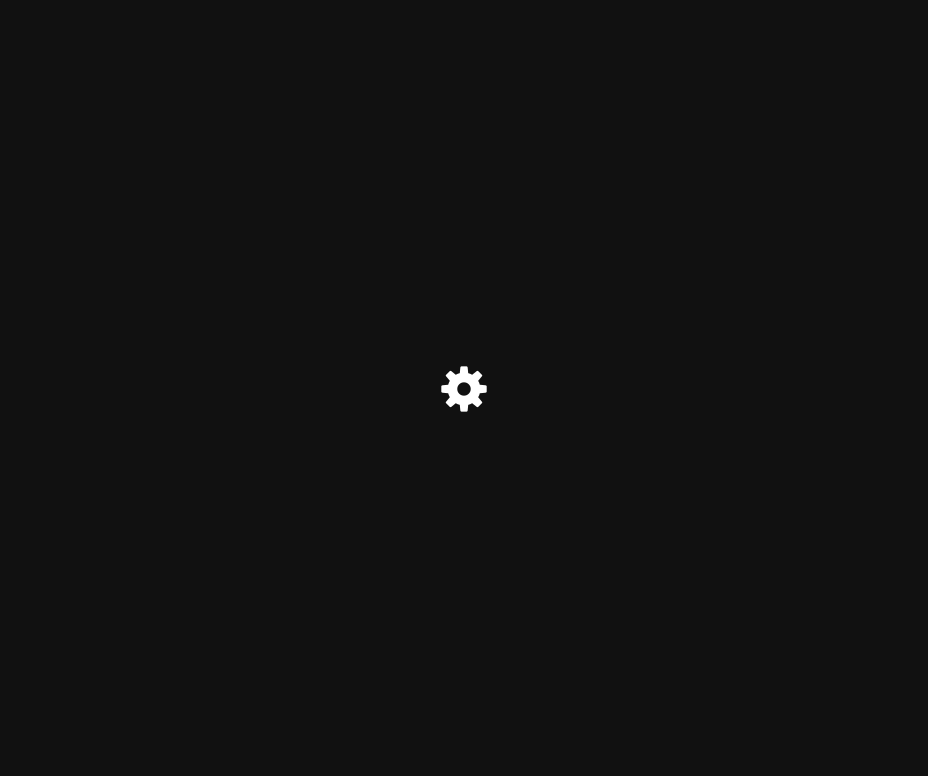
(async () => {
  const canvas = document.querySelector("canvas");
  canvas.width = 928;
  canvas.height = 776;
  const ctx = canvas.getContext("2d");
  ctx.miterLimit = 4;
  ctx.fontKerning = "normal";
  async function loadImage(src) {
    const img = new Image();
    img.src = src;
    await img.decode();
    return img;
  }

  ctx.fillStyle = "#111111";
  ctx.fillRect(0, 0, 928, 776);
  ctx.drawImage(await loadImage("img/1.png"), 441, 366, 46, 46);
})();
